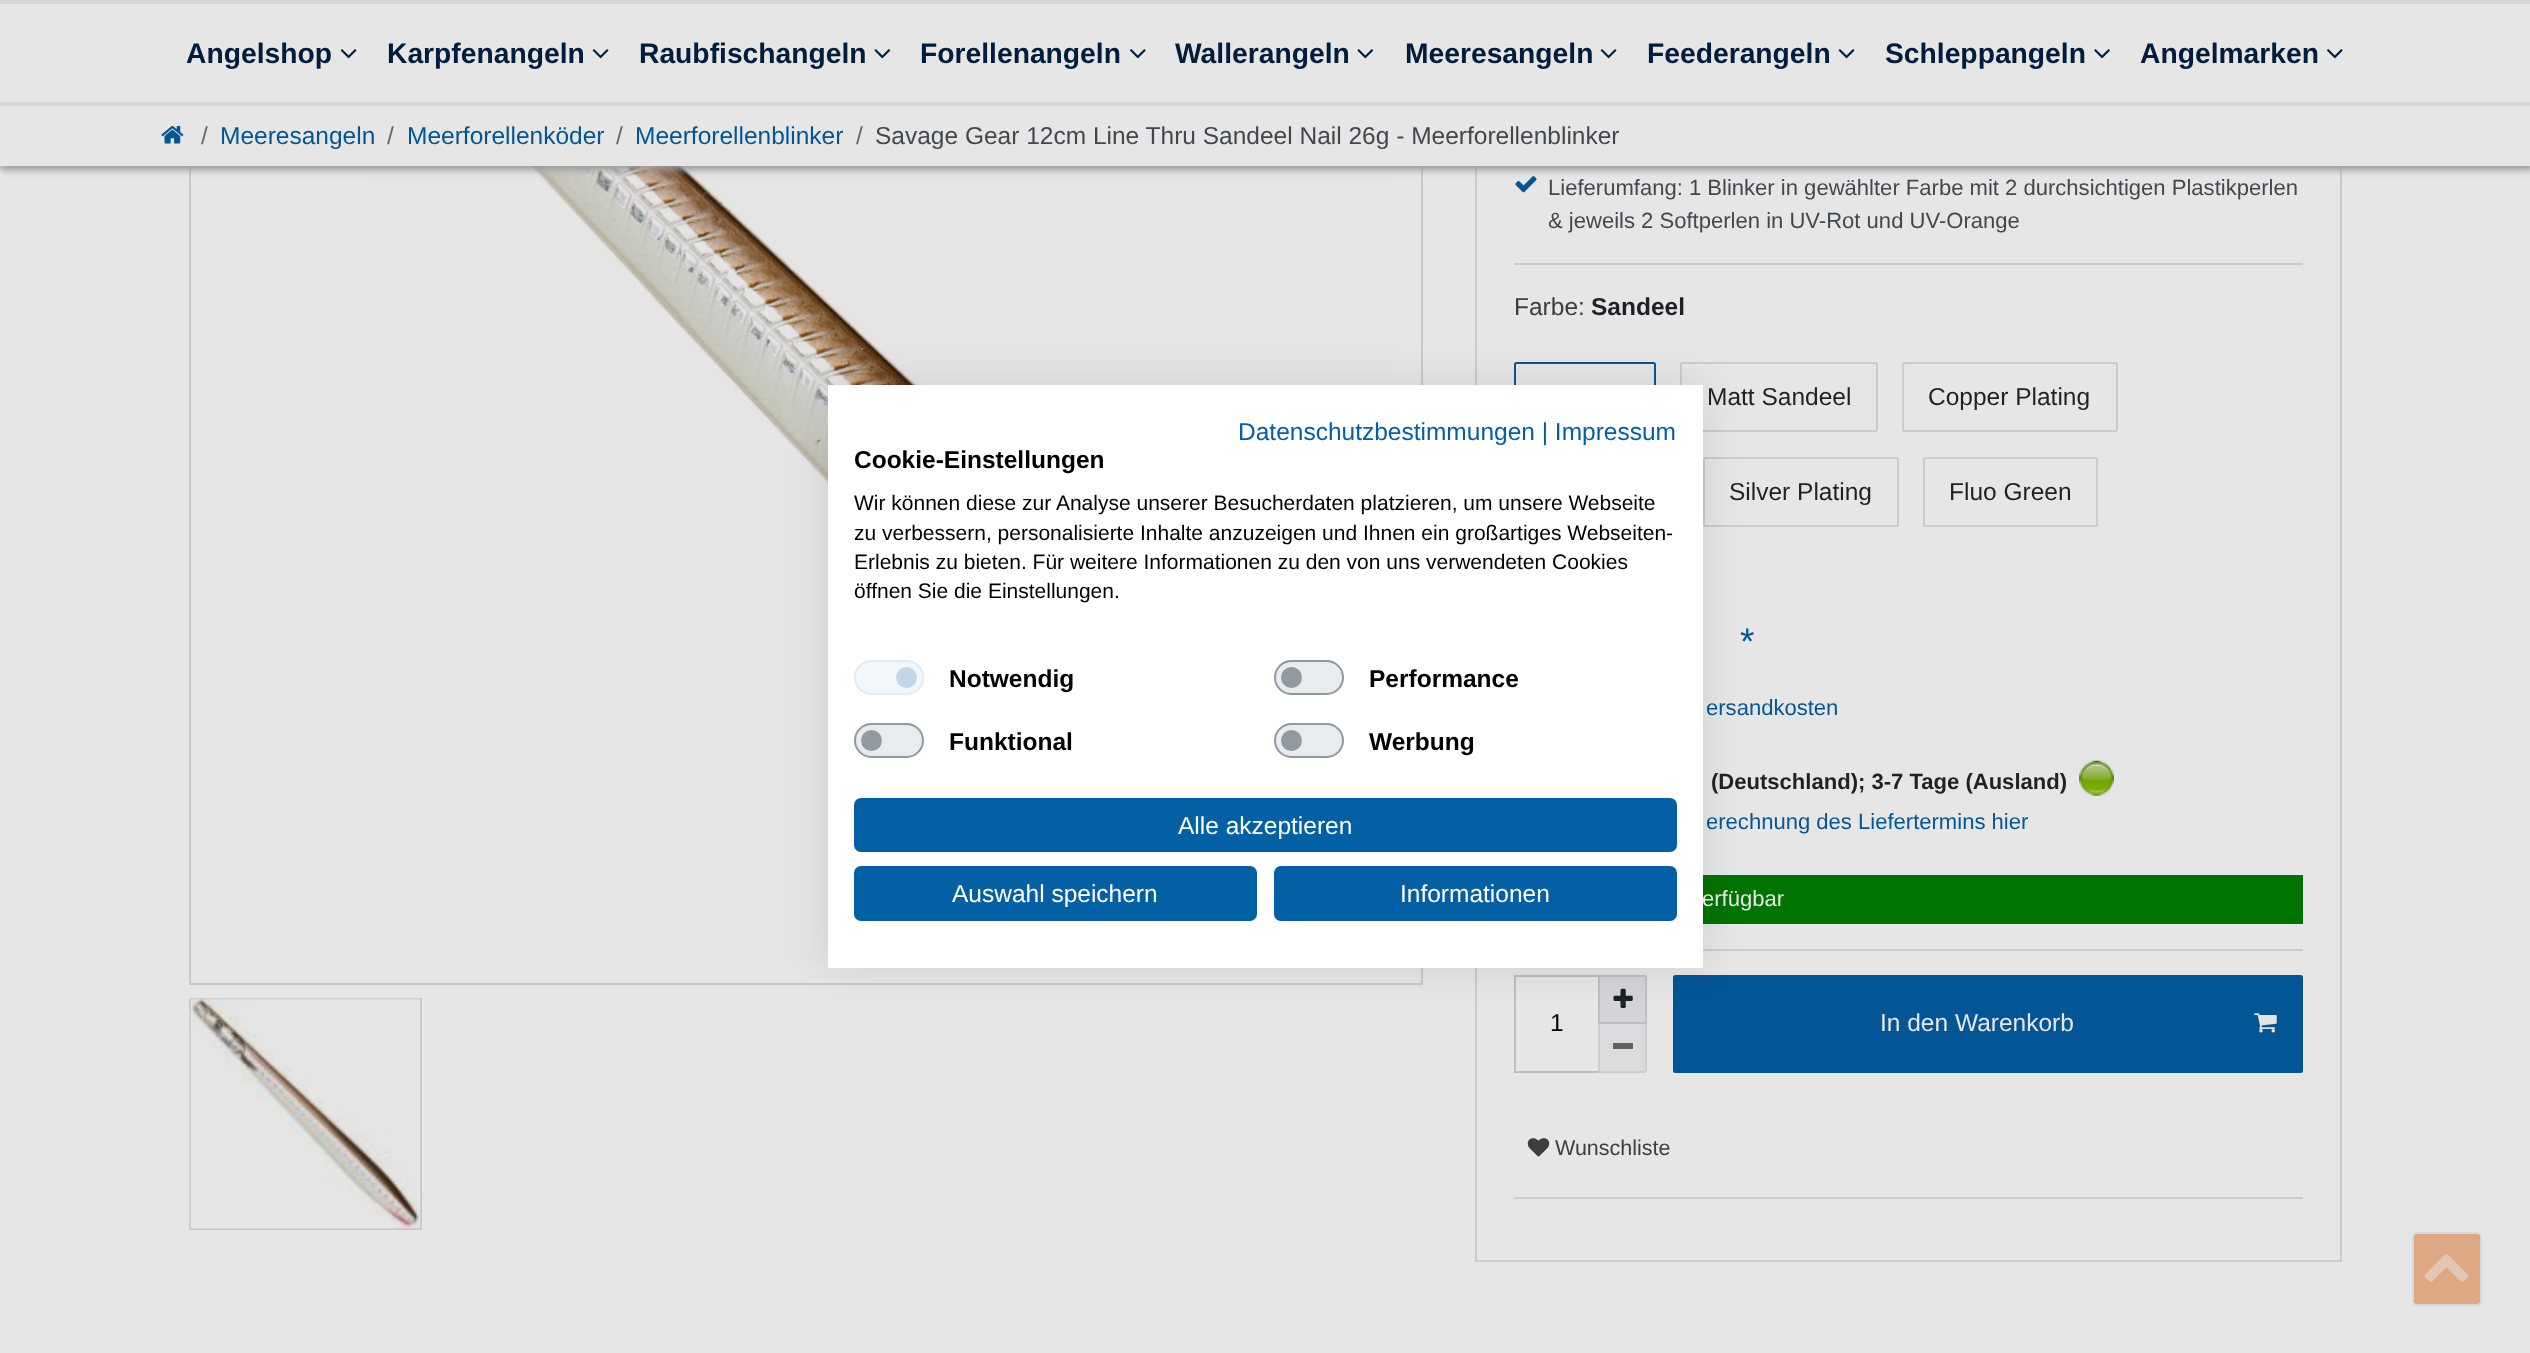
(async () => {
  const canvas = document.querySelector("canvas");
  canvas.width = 2530;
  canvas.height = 1353;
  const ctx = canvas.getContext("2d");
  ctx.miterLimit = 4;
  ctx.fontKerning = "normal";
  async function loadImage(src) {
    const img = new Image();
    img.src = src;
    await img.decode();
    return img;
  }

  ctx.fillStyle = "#e6e6e6";
  ctx.fillRect(0, 0, 2530, 1353);
  ctx.strokeStyle = "#c7c7c7";
  ctx.lineWidth = 2;
  ctx.strokeRect(190, -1, 1232, 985);
  ctx.drawImage(await loadImage("img/6.png"), 371, 166, 1024, 798);
  ctx.strokeStyle = "#c8cbcf";
  ctx.strokeRect(1476, -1, 865, 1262);
  ctx.drawImage(await loadImage("img/8.png"), 1515, 176, 22, 17);
  ctx.fillStyle = "#999999";
  ctx.filter = "blur(3.5px)";
  ctx.beginPath();
  ctx.rect(0, 105, 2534, 65);
  ctx.fill();
  ctx.filter = "none";
  for (const [x, y, w, h, color] of [
    [0, 4, 2530, 98, "#e6e6e6"],
    [0, 0, 2530, 4, "#d6d6d6"],
    [0, 102, 2530, 4, "#d6d6d6"],
  ]) {
    ctx.fillStyle = color;
    ctx.fillRect(x, y, w, h);
  }
  ctx.drawImage(await loadImage("img/1.png"), 340, 49, 17, 10);
  ctx.drawImage(await loadImage("img/1.png"), 592, 49, 17, 10);
  ctx.drawImage(await loadImage("img/2.png"), 874, 49, 17, 10);
  ctx.drawImage(await loadImage("img/3.png"), 1130, 49, 16, 10);
  ctx.drawImage(await loadImage("img/2.png"), 1357, 49, 17, 10);
  ctx.drawImage(await loadImage("img/1.png"), 1600, 49, 17, 10);
  ctx.drawImage(await loadImage("img/1.png"), 1838, 49, 17, 10);
  ctx.drawImage(await loadImage("img/4.png"), 2094, 49, 16, 10);
  ctx.drawImage(await loadImage("img/3.png"), 2327, 49, 16, 10);
  ctx.fillStyle = "#e6e6e6";
  ctx.fillRect(0, 106, 2530, 60);
  ctx.drawImage(await loadImage("img/5.png"), 161, 126, 23, 18);
  ctx.strokeStyle = "#c7c7c7";
  ctx.strokeRect(190, 999, 231, 230);
  ctx.drawImage(await loadImage("img/7.png"), 189, 998, 232, 231);
  ctx.fillStyle = "#c8cbcf";
  ctx.fillRect(1514, 263, 789, 2);
  ctx.beginPath();
  ctx.roundRect(1515, 363, 140, 68, 1.5);
  ctx.strokeStyle = "#035695";
  ctx.stroke();
  ctx.beginPath();
  ctx.roundRect(1681, 363, 196, 68, 1.5);
  ctx.strokeStyle = "#c8cbcf";
  ctx.stroke();
  ctx.beginPath();
  ctx.roundRect(1903, 363, 214, 68, 1.5);
  ctx.stroke();
  ctx.beginPath();
  ctx.roundRect(1704, 458, 194, 68, 1.5);
  ctx.stroke();
  ctx.beginPath();
  ctx.roundRect(1924, 458, 173, 68, 1.5);
  ctx.stroke();
  ctx.drawImage(await loadImage("img/9.png"), 2079, 760, 35, 36);
  for (const [x, y, w, h, color] of [
    [1703, 875, 600, 49, "#007300"],
    [1703, 949, 600, 2, "#c8cbcf"],
    [1514, 975, 84, 2, "#b9bfc4"],
    [1514, 1071, 84, 2, "#b9bfc4"],
    [1514, 975, 2, 98, "#b9bfc4"],
  ]) {
    ctx.fillStyle = color;
    ctx.fillRect(x, y, w, h);
  }
  ctx.fillStyle = "#d2d4d7";
  ctx.beginPath();
  ctx.roundRect(1599, 976, 47, 47, [0, 1.5, 0, 0]);
  ctx.fill();
  ctx.strokeStyle = "#b9bfc4";
  ctx.stroke();
  ctx.drawImage(await loadImage("img/10.png"), 1613, 988, 20, 20);
  ctx.fillStyle = "#d9dbdd";
  ctx.beginPath();
  ctx.roundRect(1598, 1024, 49, 49, [0, 0, 2.5, 0]);
  ctx.fill();
  for (const [x, y, w, h, color] of [
    [1645, 1024, 2, 47, "#c9ccd0"],
    [1598, 1071, 47, 2, "#c9ccd0"],
    [1598, 1024, 2, 49, "#c9ccd0"],
    [1613, 1043, 20, 6, "#5f6265"],
  ]) {
    ctx.fillStyle = color;
    ctx.fillRect(x, y, w, h);
  }
  ctx.fillStyle = "#035695";
  ctx.beginPath();
  ctx.roundRect(1674, 976, 628, 96, 1.5);
  ctx.fill();
  ctx.strokeStyle = "#035695";
  ctx.stroke();
  ctx.drawImage(await loadImage("img/11.png"), 2254, 1013, 23, 20);
  ctx.drawImage(await loadImage("img/12.png"), 1527, 1138, 23, 19);
  ctx.fillStyle = "#c8cbcf";
  ctx.fillRect(1514, 1197, 789, 2);
  ctx.fillStyle = "#dea883";
  ctx.beginPath();
  ctx.roundRect(2413, 1233, 68, 72, 4);
  ctx.fill();
  ctx.strokeStyle = "#d7d9db";
  ctx.stroke();
  ctx.drawImage(await loadImage("img/13.png"), 2424, 1253, 45, 30);
  ctx.fillStyle = "rgba(0, 0, 0, 0.1)";
  ctx.filter = "blur(21px)";
  ctx.beginPath();
  ctx.rect(828, 385, 875, 583);
  ctx.fill();
  ctx.filter = "none";
  ctx.fillStyle = "#ffffff";
  ctx.fillRect(828, 385, 875, 583);
  ctx.fillStyle = "#f2f7fb";
  ctx.beginPath();
  ctx.roundRect(854, 660, 70, 35, 17.5);
  ctx.fill();
  ctx.fillStyle = "#c0d7e9";
  ctx.beginPath();
  ctx.arc(906.5, 677.5, 10.5, 0, Math.PI * 2);
  ctx.fill();
  ctx.beginPath();
  ctx.roundRect(855, 661, 68, 33, 16.5);
  ctx.strokeStyle = "#e0ebf4";
  ctx.stroke();
  ctx.fillStyle = "#e9ecef";
  ctx.beginPath();
  ctx.roundRect(1274, 660, 70, 35, 17.5);
  ctx.fill();
  ctx.fillStyle = "#92999f";
  ctx.beginPath();
  ctx.arc(1291.5, 677.5, 10.5, 0, Math.PI * 2);
  ctx.fill();
  ctx.beginPath();
  ctx.roundRect(1275, 661, 68, 33, 16.5);
  ctx.strokeStyle = "rgba(108, 117, 125, 0.7)";
  ctx.stroke();
  ctx.fillStyle = "#e9ecef";
  ctx.beginPath();
  ctx.roundRect(854, 723, 70, 35, 17.5);
  ctx.fill();
  ctx.fillStyle = "#92999f";
  ctx.beginPath();
  ctx.arc(871.5, 740.5, 10.5, 0, Math.PI * 2);
  ctx.fill();
  ctx.beginPath();
  ctx.roundRect(855, 724, 68, 33, 16.5);
  ctx.stroke();
  ctx.fillStyle = "#e9ecef";
  ctx.beginPath();
  ctx.roundRect(1274, 723, 70, 35, 17.5);
  ctx.fill();
  ctx.fillStyle = "#92999f";
  ctx.beginPath();
  ctx.arc(1291.5, 740.5, 10.5, 0, Math.PI * 2);
  ctx.fill();
  ctx.beginPath();
  ctx.roundRect(1275, 724, 68, 33, 16.5);
  ctx.stroke();
  ctx.fillStyle = "#0360a5";
  ctx.beginPath();
  ctx.roundRect(855, 799, 821, 52, 6);
  ctx.fill();
  ctx.strokeStyle = "#0360a5";
  ctx.stroke();
  ctx.beginPath();
  ctx.roundRect(855, 867, 401, 53, 6);
  ctx.fill();
  ctx.stroke();
  ctx.beginPath();
  ctx.roundRect(1275, 867, 401, 53, 6);
  ctx.fill();
  ctx.stroke();
  ctx.font = "bold 28.25px Liberation Sans";
  ctx.fillStyle = "#011c3d";
  for (const [text, x, y] of [
    ["Angelshop", 186, 63],
    ["Karpfenangeln", 387, 63],
    ["Raubfischangeln", 639, 63],
    ["Forellenangeln", 920, 63],
    ["Wallerangeln", 1175, 63],
    ["Meeresangeln", 1405, 63],
    ["Feederangeln", 1647, 63],
    ["Schleppangeln", 1885, 63],
    ["Angelmarken", 2140, 63],
  ]) {
    ctx.fillText(text, x, y);
  }
  ctx.font = "24.5px Liberation Sans";
  ctx.fillStyle = "#616971";
  ctx.fillText("/", 201, 144);
  ctx.fillStyle = "#035695";
  ctx.fillText("Meeresangeln", 220, 144);
  ctx.fillStyle = "#616971";
  ctx.fillText("/", 387, 144);
  ctx.fillStyle = "#035695";
  ctx.fillText("Meerforellenköder", 407, 144);
  ctx.fillStyle = "#616971";
  ctx.fillText("/", 616, 144);
  ctx.fillStyle = "#035695";
  ctx.fillText("Meerforellenblinker", 635, 144);
  ctx.fillStyle = "#616971";
  ctx.fillText("/", 856, 144);
  ctx.fillStyle = "#42484e";
  ctx.fillText("Savage Gear 12cm Line Thru Sandeel Nail 26g - Meerforellenblinker", 875, 144);
  ctx.font = "22.05px Liberation Sans";
  ctx.fillText("Lieferumfang: 1 Blinker in gewählter Farbe mit 2 durchsichtigen Plastikperlen", 1548, 195);
  ctx.fillText("& jeweils 2 Softperlen in UV-Rot und UV-Orange", 1548, 228);
  ctx.font = "24.5px Liberation Sans";
  ctx.fillStyle = "#3d3d3d";
  ctx.fillText("Farbe:", 1514, 315);
  ctx.font = "bold 24.5px Liberation Sans";
  ctx.fillStyle = "#1e2125";
  ctx.fillText("Sandeel", 1591, 315);
  ctx.font = "24.5px Liberation Sans";
  for (const [text, x, y] of [
    ["Matt Sandeel", 1707, 405],
    ["Copper Plating", 1928, 405],
    ["Silver Plating", 1729, 500],
    ["Fluo Green", 1949, 500],
  ]) {
    ctx.fillText(text, x, y);
  }
  ctx.font = "37px Liberation Sans";
  ctx.fillStyle = "#035695";
  ctx.fillText("*", 1740, 654);
  ctx.font = "22.05px Liberation Sans";
  ctx.fillText("ersandkosten", 1706, 715);
  ctx.font = "bold 22.05px Liberation Sans";
  ctx.fillStyle = "#1e2125";
  ctx.fillText("(Deutschland); 3-7 Tage (Ausland)", 1711, 789);
  ctx.font = "22.05px Liberation Sans";
  ctx.fillStyle = "#035695";
  ctx.fillText("erechnung des Liefertermins hier", 1706, 829);
  ctx.fillStyle = "#e6e6e6";
  ctx.fillText("erfügbar", 1702, 906);
  ctx.font = "24.5px Liberation Sans";
  ctx.fillStyle = "#000000";
  ctx.fillText("1", 1550, 1031);
  ctx.fillStyle = "#e6e6e6";
  ctx.fillText("In den Warenkorb", 1880, 1031);
  ctx.font = "21.5px Liberation Sans";
  ctx.fillStyle = "#3d3d3d";
  ctx.fillText("Wunschliste", 1555, 1155);
  ctx.font = "24.5px Liberation Sans";
  ctx.fillStyle = "#0360a5";
  ctx.fillText("Datenschutzbestimmungen | Impressum", 1238, 440);
  ctx.font = "bold 24.5px Liberation Sans";
  ctx.fillStyle = "#000000";
  ctx.fillText("Cookie-Einstellungen", 854, 468);
  ctx.font = "21px Liberation Sans";
  for (const [text, x, y] of [
    ["Wir können diese zur Analyse unserer Besucherdaten platzieren, um unsere Webseite", 854, 510],
    ["zu verbessern, personalisierte Inhalte anzuzeigen und Ihnen ein großartiges Webseiten-", 854, 540],
    ["Erlebnis zu bieten. Für weitere Informationen zu den von uns verwendeten Cookies", 854, 569],
    ["öffnen Sie die Einstellungen.", 854, 598],
  ]) {
    ctx.fillText(text, x, y);
  }
  ctx.font = "bold 24.5px Liberation Sans";
  for (const [text, x, y] of [
    ["Notwendig", 949, 687],
    ["Performance", 1369, 687],
    ["Funktional", 949, 750],
    ["Werbung", 1369, 750],
  ]) {
    ctx.fillText(text, x, y);
  }
  ctx.font = "24.5px Liberation Sans";
  ctx.fillStyle = "#ffffff";
  for (const [text, x, y] of [
    ["Alle akzeptieren", 1178, 834],
    ["Auswahl speichern", 952, 902],
    ["Informationen", 1400, 902],
  ]) {
    ctx.fillText(text, x, y);
  }
})();
